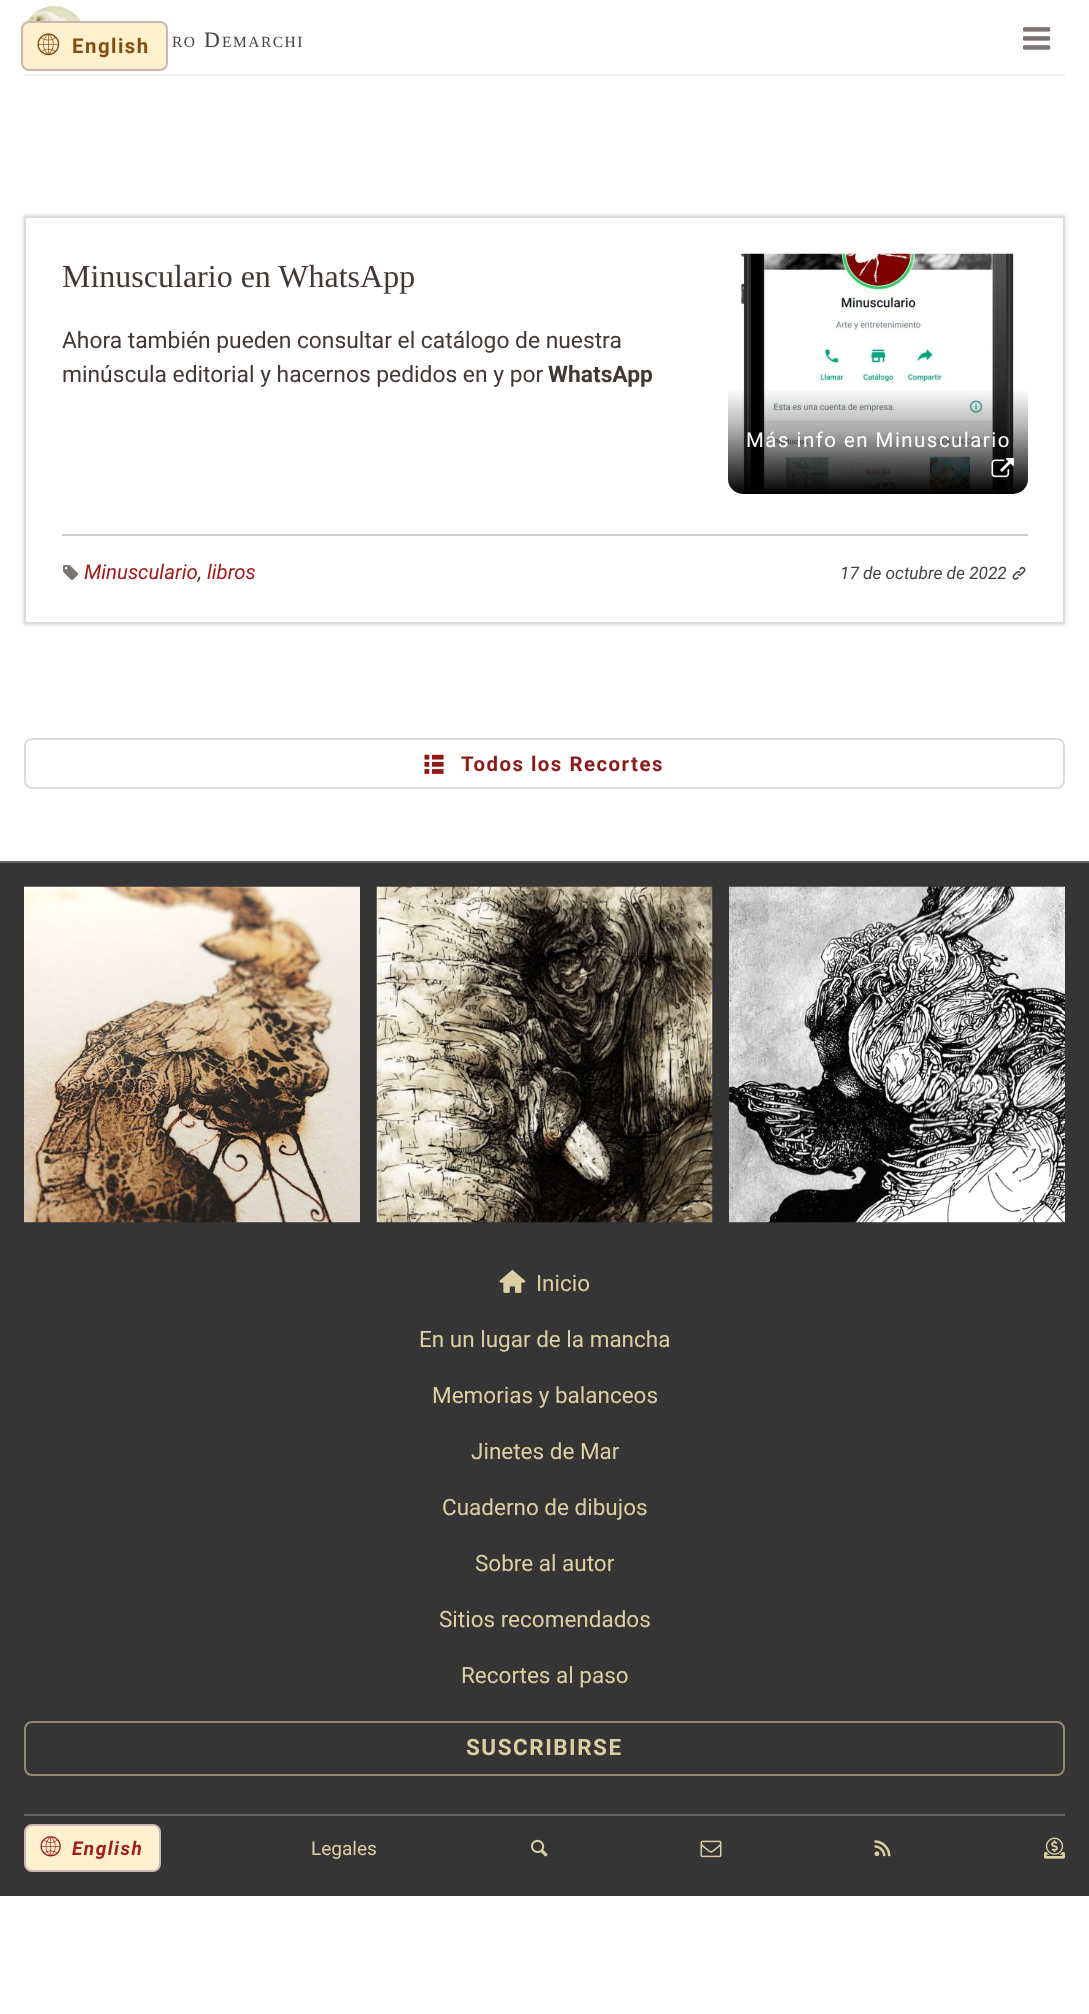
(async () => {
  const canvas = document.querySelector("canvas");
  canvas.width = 1089;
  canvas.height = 2014;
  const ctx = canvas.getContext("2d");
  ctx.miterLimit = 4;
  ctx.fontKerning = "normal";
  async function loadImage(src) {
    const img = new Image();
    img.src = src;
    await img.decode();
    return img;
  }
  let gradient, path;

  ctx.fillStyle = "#ffffff";
  ctx.fillRect(0, 0, 1089, 2014);
  ctx.fillStyle = "#efefef";
  ctx.fillRect(24, 74, 1041, 2);
  ctx.drawImage(await loadImage("img/1.png"), 26, 6, 55, 16);
  ctx.drawImage(await loadImage("img/2.png"), 1023, 27, 28, 23);
  ctx.fillStyle = "#fff0ce";
  ctx.beginPath();
  ctx.roundRect(22, 22, 145, 48, 7);
  ctx.fill();
  ctx.strokeStyle = "#ceb5af";
  ctx.lineWidth = 2;
  ctx.stroke();
  ctx.drawImage(await loadImage("img/3.png"), 37, 33, 23, 23);
  ctx.save();
  path = new Path2D("M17 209H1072V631H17ZM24 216H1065V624H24Z");
  ctx.clip(path, "evenodd");
  ctx.fillStyle = "rgba(68, 68, 68, 0.24)";
  ctx.filter = "blur(2px)";
  ctx.beginPath();
  ctx.rect(24, 216, 1041, 408);
  ctx.fill();
  ctx.filter = "none";
  ctx.restore();
  ctx.strokeStyle = "#dddddd";
  ctx.strokeRect(25, 217, 1039, 406);
  ctx.drawImage(await loadImage("img/4.png"), 741, 253, 273, 241);
  gradient = ctx.createLinearGradient(878, 494, 878, 363);
  gradient.addColorStop(0, "#000000");
  gradient.addColorStop(0.5, "rgba(0, 0, 0, 0.31)");
  gradient.addColorStop(0.8, "rgba(0, 0, 0, 0)");
  ctx.fillStyle = gradient;
  ctx.beginPath();
  ctx.roundRect(728, 363, 300, 131, 15);
  ctx.fill();
  ctx.drawImage(await loadImage("img/5.png"), 991, 457, 23, 21);
  ctx.fillStyle = "#cccccc";
  ctx.fillRect(62, 534, 966, 2);
  ctx.drawImage(await loadImage("img/6.png"), 63, 565, 16, 16);
  ctx.drawImage(await loadImage("img/7.png"), 1012, 566, 14, 14);
  ctx.beginPath();
  ctx.roundRect(25, 739, 1039, 49, 7);
  ctx.stroke();
  ctx.drawImage(await loadImage("img/8.png"), 424, 754, 20, 20);
  ctx.fillStyle = "#353535";
  ctx.fillRect(0, 863, 1089, 1033);
  ctx.fillStyle = "#666666";
  ctx.fillRect(0, 861, 1089, 2);
  ctx.drawImage(await loadImage("img/9.png"), 24, 886, 336, 337);
  ctx.drawImage(await loadImage("img/10.png"), 376, 886, 337, 337);
  ctx.drawImage(await loadImage("img/11.png"), 729, 886, 336, 337);
  ctx.drawImage(await loadImage("img/12.png"), 499, 1269, 27, 24);
  ctx.beginPath();
  ctx.roundRect(25, 1722, 1039, 53, 7);
  ctx.strokeStyle = "#938c6c";
  ctx.stroke();
  ctx.fillRect(24, 1814, 1041, 2);
  ctx.fillStyle = "#fff0ce";
  ctx.beginPath();
  ctx.roundRect(25, 1825, 135, 46, 7);
  ctx.fill();
  ctx.strokeStyle = "#ceb5af";
  ctx.stroke();
  ctx.drawImage(await loadImage("img/13.png"), 40, 1836, 21, 21);
  ctx.drawImage(await loadImage("img/14.png"), 531, 1839, 17, 18);
  ctx.drawImage(await loadImage("img/15.png"), 700, 1840, 22, 18);
  ctx.drawImage(await loadImage("img/16.png"), 874, 1840, 17, 17);
  ctx.drawImage(await loadImage("img/17.png"), 1044, 1837, 21, 22);
  ctx.letterSpacing = "1.5px";
  ctx.font = "15.5px Liberation Serif";
  ctx.fillStyle = "#444444";
  ctx.fillText("RO", 172, 47);
  ctx.font = "22px Liberation Serif";
  ctx.fillText("D", 204, 47);
  ctx.font = "15.5px Liberation Serif";
  ctx.fillText("EMARCHI", 222, 47);
  ctx.font = "bold 20.4px Roboto";
  ctx.fillStyle = "#864c0f";
  ctx.fillText("English", 72, 53);
  ctx.letterSpacing = "0px";
  ctx.font = "32px Liberation Serif";
  ctx.fillStyle = "#413835";
  ctx.fillText("Minusculario en WhatsApp", 62, 287);
  ctx.font = "22.8px Roboto";
  ctx.fillText("Ahora también pueden consultar el catálogo de nuestra", 62, 348);
  ctx.fillText("minúscula editorial y hacernos pedidos en y por", 62, 382);
  ctx.font = "bold 22.8px Roboto";
  ctx.fillText("WhatsApp", 548, 382);
  ctx.letterSpacing = "1.5px";
  ctx.font = "20.4px Roboto";
  ctx.fillStyle = "#ffffff";
  ctx.fillText("Más info en Minusculario", 746, 447);
  ctx.letterSpacing = "0px";
  ctx.font = "italic 20.4px Roboto";
  ctx.fillStyle = "#a31b18";
  ctx.fillText("Minusculario", 84, 579);
  ctx.fillStyle = "#413835";
  ctx.fillText(",", 198, 579);
  ctx.fillStyle = "#a31b18";
  ctx.fillText("libros", 207, 579);
  ctx.font = "italic 17.25px Roboto";
  ctx.fillStyle = "#444444";
  ctx.fillText("17 de octubre de 2022", 840, 579);
  ctx.letterSpacing = "1.5px";
  ctx.font = "bold 20.4px Roboto";
  ctx.fillStyle = "#8e1a17";
  ctx.fillText("Todos los Recortes", 461, 771);
  ctx.letterSpacing = "0px";
  ctx.font = "22.5px Roboto";
  ctx.fillStyle = "#dad0a3";
  for (const [text, x, y] of [
    ["Inicio", 536, 1291],
    ["En un lugar de la mancha", 419, 1347],
    ["Memorias y balanceos", 432, 1403],
    ["Jinetes de Mar", 471, 1459],
    ["Cuaderno de dibujos", 442, 1515],
    ["Sobre al autor", 475, 1571],
    ["Sitios recomendados", 439, 1627],
    ["Recortes al paso", 461, 1683],
  ]) {
    ctx.fillText(text, x, y);
  }
  ctx.letterSpacing = "1.5px";
  ctx.font = "bold 22.5px Roboto";
  ctx.fillText("SUSCRIBIRSE", 466, 1755);
  ctx.font = "italic bold 19px Roboto";
  ctx.fillStyle = "#a31b18";
  ctx.fillText("English", 72, 1855);
  ctx.letterSpacing = "0px";
  ctx.font = "19px Roboto";
  ctx.fillStyle = "#dad0a3";
  ctx.fillText("Legales", 311, 1855);
})();
